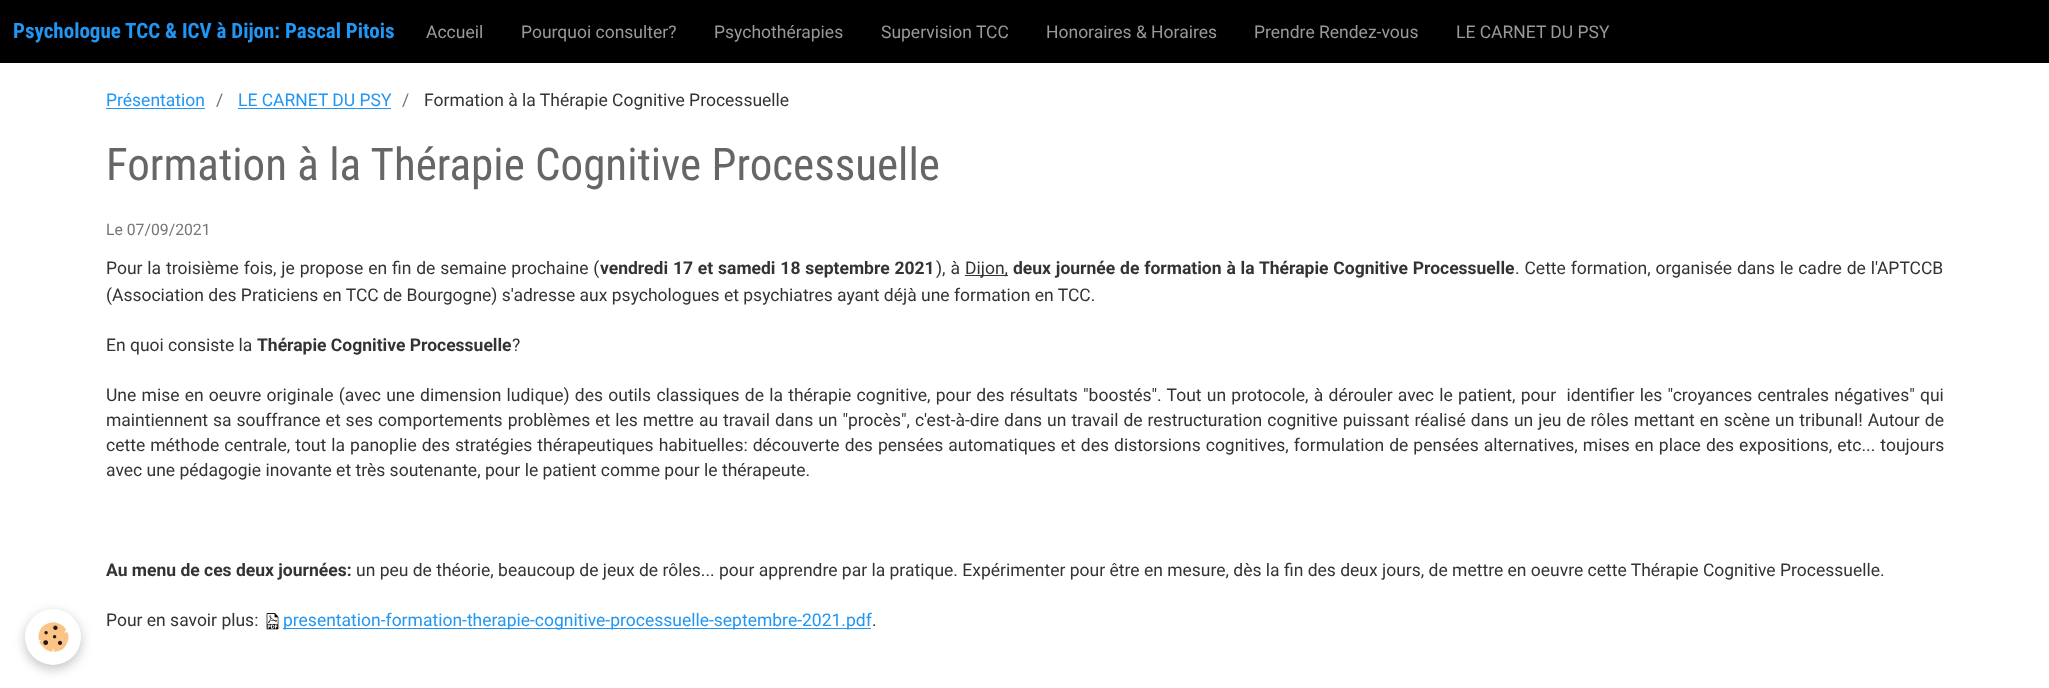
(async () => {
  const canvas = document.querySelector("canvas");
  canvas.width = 2049;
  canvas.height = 688;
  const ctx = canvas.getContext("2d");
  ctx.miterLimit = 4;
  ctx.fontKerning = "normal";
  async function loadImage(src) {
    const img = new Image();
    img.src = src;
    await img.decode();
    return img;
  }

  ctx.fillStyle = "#ffffff";
  ctx.fillRect(0, 0, 2049, 688);
  for (const [x, y, w, h, color] of [
    [0, 0, 2049, 63, "#000000"],
    [106, 108, 99, 1, "#2196f3"],
    [238, 108, 153, 1, "#2196f3"],
    [965, 275, 43, 1, "#333333"],
  ]) {
    ctx.fillStyle = color;
    ctx.fillRect(x, y, w, h);
  }
  ctx.drawImage(await loadImage("img/1.png"), 266, 613, 13, 17);
  ctx.fillStyle = "#2196f3";
  ctx.fillRect(283, 628, 588, 1);
  ctx.fillStyle = "rgba(0, 0, 0, 0.24)";
  ctx.filter = "blur(6px)";
  ctx.beginPath();
  ctx.roundRect(25, 613, 56, 56, 28);
  ctx.fill();
  ctx.filter = "none";
  ctx.fillStyle = "#ffffff";
  ctx.beginPath();
  ctx.arc(53, 637, 28, 0, Math.PI * 2);
  ctx.fill();
  ctx.drawImage(await loadImage("img/2.png"), 38, 622, 31, 30);
  ctx.font = "bold 21px Roboto Condensed";
  ctx.fillStyle = "#2196f3";
  ctx.fillText("Psychologue TCC & ICV à Dijon: Pascal Pitois", 13, 38);
  ctx.font = "17.5px Roboto";
  ctx.fillStyle = "#999999";
  for (const [text, x, y] of [
    ["Accueil", 426, 38],
    ["Pourquoi consulter?", 521, 38],
    ["Psychothérapies", 714, 38],
    ["Supervision TCC", 881, 38],
    ["Honoraires & Horaires", 1046, 38],
    ["Prendre Rendez-vous", 1254, 38],
    ["LE CARNET DU PSY", 1456, 38],
  ]) {
    ctx.fillText(text, x, y);
  }
  ctx.fillStyle = "#2196f3";
  ctx.fillText("Présentation", 106, 106);
  ctx.fillStyle = "#767676";
  ctx.fillText("/", 216, 106);
  ctx.fillStyle = "#2196f3";
  ctx.fillText("LE CARNET DU PSY", 238, 106);
  ctx.fillStyle = "#767676";
  ctx.fillText("/", 402, 106);
  ctx.fillStyle = "#333333";
  ctx.fillText("Formation à la Thérapie Cognitive Processuelle", 424, 106);
  ctx.font = "45px Roboto Condensed";
  ctx.fillStyle = "#666666";
  ctx.fillText("Formation à la Thérapie Cognitive Processuelle", 106, 180);
  ctx.font = "15.75px Roboto";
  ctx.fillStyle = "#767676";
  ctx.fillText("Le 07/09/2021", 106, 235);
  ctx.wordSpacing = "0.5px";
  ctx.font = "17.5px Roboto";
  ctx.fillStyle = "#333333";
  ctx.fillText("Pour la troisième fois, je propose en fin de semaine prochaine (", 106, 274);
  ctx.font = "bold 17.5px Roboto";
  ctx.fillText("vendredi 17 et samedi 18 septembre 2021", 600, 274);
  ctx.font = "17.5px Roboto";
  ctx.fillText("), à", 936, 274);
  ctx.wordSpacing = "0px";
  ctx.fillText("Dijon,", 965, 274);
  ctx.wordSpacing = "0.5px";
  ctx.font = "bold 17.5px Roboto";
  ctx.fillText("deux journée de formation à la Thérapie Cognitive Processuelle", 1013, 274);
  ctx.font = "17.5px Roboto";
  ctx.fillText(". Cette formation, organisée dans le cadre de l'APTCCB", 1515, 274);
  ctx.wordSpacing = "0px";
  ctx.fillText("(Association des Praticiens en TCC de Bourgogne) s'adresse aux psychologues et psychiatres ayant déjà une formation en TCC.", 106, 301);
  ctx.fillText("En quoi consiste la", 106, 351);
  ctx.font = "bold 17.5px Roboto";
  ctx.fillText("Thérapie Cognitive Processuelle", 257, 351);
  ctx.font = "17.5px Roboto";
  ctx.fillText("?", 512, 351);
  ctx.wordSpacing = "0.9px";
  ctx.fillText("Une mise en oeuvre originale (avec une dimension ludique) des outils classiques de la thérapie cognitive, pour des résultats \"boostés\". Tout un protocole, à dérouler avec le patient, pour  identifier les \"croyances centrales négatives\" qui", 106, 401);
  ctx.wordSpacing = "0.65px";
  ctx.fillText("maintiennent sa souffrance et ses comportements problèmes et les mettre au travail dans un \"procès\", c'est-à-dire dans un travail de restructuration cognitive puissant réalisé dans un jeu de rôles mettant en scène un tribunal! Autour de", 106, 426);
  ctx.wordSpacing = "0.7px";
  ctx.fillText("cette méthode centrale, tout la panoplie des stratégies thérapeutiques habituelles: découverte des pensées automatiques et des distorsions cognitives, formulation de pensées alternatives, mises en place des expositions, etc... toujours", 106, 451);
  ctx.wordSpacing = "0px";
  ctx.fillText("avec une pédagogie inovante et très soutenante, pour le patient comme pour le thérapeute.", 106, 476);
  ctx.font = "bold 17.5px Roboto";
  ctx.fillText("Au menu de ces deux journées:", 106, 576);
  ctx.font = "17.5px Roboto";
  ctx.fillText("un peu de théorie, beaucoup de jeux de rôles... pour apprendre par la pratique. Expérimenter pour être en mesure, dès la fin des deux jours, de mettre en oeuvre cette Thérapie Cognitive Processuelle.", 356, 576);
  ctx.fillText("Pour en savoir plus:", 106, 626);
  ctx.fillStyle = "#2196f3";
  ctx.fillText("presentation-formation-therapie-cognitive-processuelle-septembre-2021.pdf", 283, 626);
  ctx.fillStyle = "#333333";
  ctx.fillText(".", 872, 626);
})();
